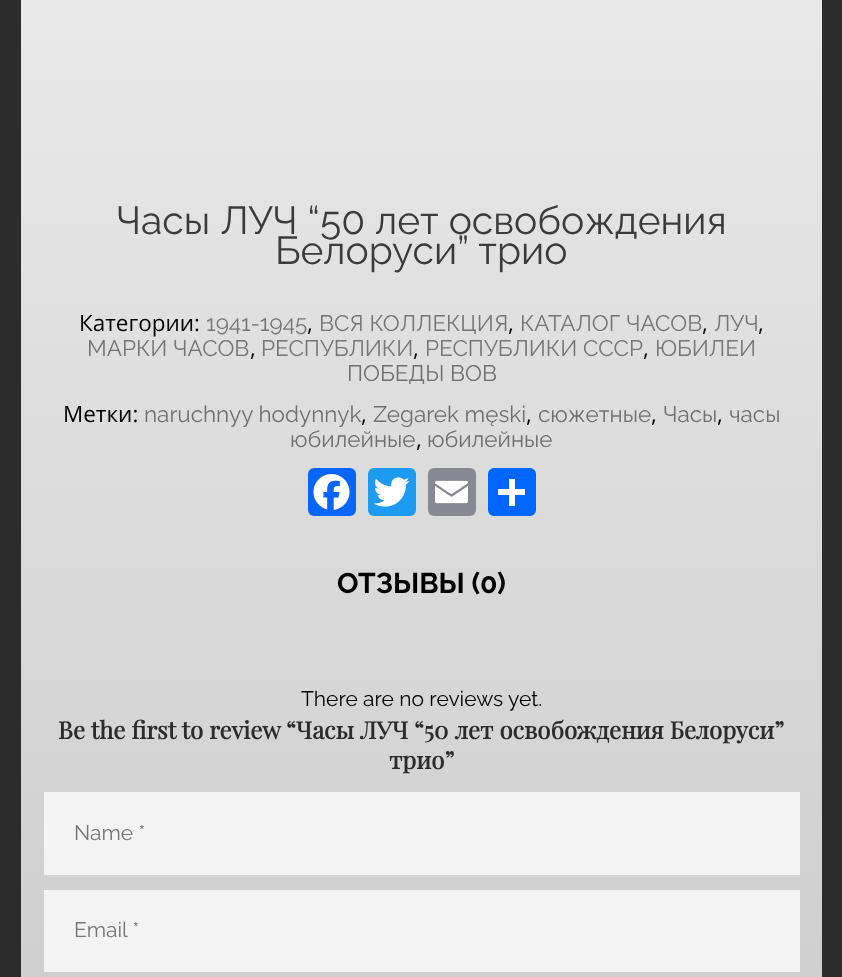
(async () => {
  const canvas = document.querySelector("canvas");
  canvas.width = 842;
  canvas.height = 977;
  const ctx = canvas.getContext("2d");
  ctx.miterLimit = 4;
  ctx.fontKerning = "normal";
  async function loadImage(src) {
    const img = new Image();
    img.src = src;
    await img.decode();
    return img;
  }
  let gradient;

  ctx.fillStyle = "#2c2c2c";
  ctx.fillRect(0, 0, 842, 977);
  gradient = ctx.createLinearGradient(421, -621, 422, 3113);
  gradient.addColorStop(0, "#f9f9f9");
  gradient.addColorStop(1, "#969696");
  ctx.fillStyle = gradient;
  ctx.fillRect(21, 0, 801, 977);
  ctx.fillStyle = "#0866ff";
  ctx.beginPath();
  ctx.roundRect(308, 468, 48, 48, 6);
  ctx.fill();
  ctx.drawImage(await loadImage("img/1.png"), 313, 474, 37, 36);
  ctx.fillStyle = "#1d9bf0";
  ctx.beginPath();
  ctx.roundRect(368, 468, 48, 48, 6);
  ctx.fill();
  ctx.drawImage(await loadImage("img/2.png"), 373, 477, 37, 30);
  ctx.fillStyle = "#888990";
  ctx.beginPath();
  ctx.roundRect(428, 468, 48, 48, 6);
  ctx.fill();
  ctx.drawImage(await loadImage("img/3.png"), 435, 480, 33, 24);
  ctx.fillStyle = "#0166ff";
  ctx.beginPath();
  ctx.roundRect(488, 468, 48, 48, 6);
  ctx.fill();
  for (const [x, y, w, h, color] of [
    [509, 479, 6, 27, "#ffffff"],
    [498, 489, 27, 6, "#ffffff"],
    [44, 792, 756, 83, "#f3f3f3"],
    [44, 890, 756, 82, "#f3f3f3"],
  ]) {
    ctx.fillStyle = color;
    ctx.fillRect(x, y, w, h);
  }
  ctx.font = "39px Raleway";
  ctx.fillStyle = "#3b3b3b";
  ctx.fillText("Часы ЛУЧ “50 лет освобождения", 116, 234);
  ctx.fillText("Белоруси” трио", 275, 264);
  ctx.font = "22.5px Open Sans";
  ctx.fillStyle = "#000000";
  ctx.fillText("Категории:", 79, 331);
  ctx.font = "22.5px Raleway";
  ctx.fillStyle = "#757575";
  ctx.fillText("1941-1945", 206, 331);
  ctx.font = "22.5px Open Sans";
  ctx.fillStyle = "#000000";
  ctx.fillText(",", 307, 331);
  ctx.font = "22.5px Raleway";
  ctx.fillStyle = "#757575";
  ctx.fillText("ВСЯ КОЛЛЕКЦИЯ", 319, 331);
  ctx.font = "22.5px Open Sans";
  ctx.fillStyle = "#000000";
  ctx.fillText(",", 508, 331);
  ctx.font = "22.5px Raleway";
  ctx.fillStyle = "#757575";
  ctx.fillText("КАТАЛОГ ЧАСОВ", 520, 331);
  ctx.font = "22.5px Open Sans";
  ctx.fillStyle = "#000000";
  ctx.fillText(",", 702, 331);
  ctx.font = "22.5px Raleway";
  ctx.fillStyle = "#757575";
  ctx.fillText("ЛУЧ", 714, 331);
  ctx.font = "22.5px Open Sans";
  ctx.fillStyle = "#000000";
  ctx.fillText(",", 758, 331);
  ctx.font = "22.5px Raleway";
  ctx.fillStyle = "#757575";
  ctx.fillText("МАРКИ ЧАСОВ", 87, 356);
  ctx.font = "22.5px Open Sans";
  ctx.fillStyle = "#000000";
  ctx.fillText(",", 250, 356);
  ctx.font = "22.5px Raleway";
  ctx.fillStyle = "#757575";
  ctx.fillText("РЕСПУБЛИКИ", 261, 356);
  ctx.font = "22.5px Open Sans";
  ctx.fillStyle = "#000000";
  ctx.fillText(",", 413, 356);
  ctx.font = "22.5px Raleway";
  ctx.fillStyle = "#757575";
  ctx.fillText("РЕСПУБЛИКИ СССР", 425, 356);
  ctx.font = "22.5px Open Sans";
  ctx.fillStyle = "#000000";
  ctx.fillText(",", 643, 356);
  ctx.font = "22.5px Raleway";
  ctx.fillStyle = "#757575";
  ctx.fillText("ЮБИЛЕИ", 655, 356);
  ctx.fillStyle = "#6f6f6f";
  ctx.fillText("ПОБЕДЫ ВОВ", 347, 381);
  ctx.font = "22.5px Open Sans";
  ctx.fillStyle = "#000000";
  ctx.fillText("Метки:", 63, 422);
  ctx.font = "22.5px Raleway";
  ctx.fillStyle = "#6f6f6f";
  ctx.fillText("naruchnyy hodynnyk", 144, 422);
  ctx.font = "22.5px Open Sans";
  ctx.fillStyle = "#000000";
  ctx.fillText(",", 361, 422);
  ctx.font = "22.5px Raleway";
  ctx.fillStyle = "#6f6f6f";
  ctx.fillText("Zegarek męski", 373, 422);
  ctx.font = "22.5px Open Sans";
  ctx.fillStyle = "#000000";
  ctx.fillText(",", 526, 422);
  ctx.font = "22.5px Raleway";
  ctx.fillStyle = "#6f6f6f";
  ctx.fillText("сюжетные", 538, 422);
  ctx.font = "22.5px Open Sans";
  ctx.fillStyle = "#000000";
  ctx.fillText(",", 651, 422);
  ctx.font = "22.5px Raleway";
  ctx.fillStyle = "#6f6f6f";
  ctx.fillText("Часы", 663, 422);
  ctx.font = "22.5px Open Sans";
  ctx.fillStyle = "#000000";
  ctx.fillText(",", 717, 422);
  ctx.font = "22.5px Raleway";
  ctx.fillStyle = "#6f6f6f";
  ctx.fillText("часы", 729, 422);
  ctx.fillText("юбилейные", 290, 447);
  ctx.font = "22.5px Open Sans";
  ctx.fillStyle = "#000000";
  ctx.fillText(",", 416, 447);
  ctx.font = "22.5px Raleway";
  ctx.fillStyle = "#6f6f6f";
  ctx.fillText("юбилейные", 427, 447);
  ctx.font = "bold 28.5px Raleway";
  ctx.fillStyle = "#000000";
  ctx.fillText("ОТЗЫВЫ (0)", 337, 593);
  ctx.font = "21px Raleway";
  ctx.fillText("There are no reviews yet.", 301, 706);
  ctx.font = "bold 24px Playfair Display";
  ctx.fillStyle = "#2c2c2c";
  ctx.fillText("Be the first to review “Часы ЛУЧ “50 лет освобождения Белоруси”", 58, 739);
  ctx.fillText("трио”", 389, 769);
  ctx.font = "21px Raleway";
  ctx.fillStyle = "#757575";
  ctx.fillText("Name *", 74, 840);
  ctx.fillText("Email *", 74, 937);
})();
